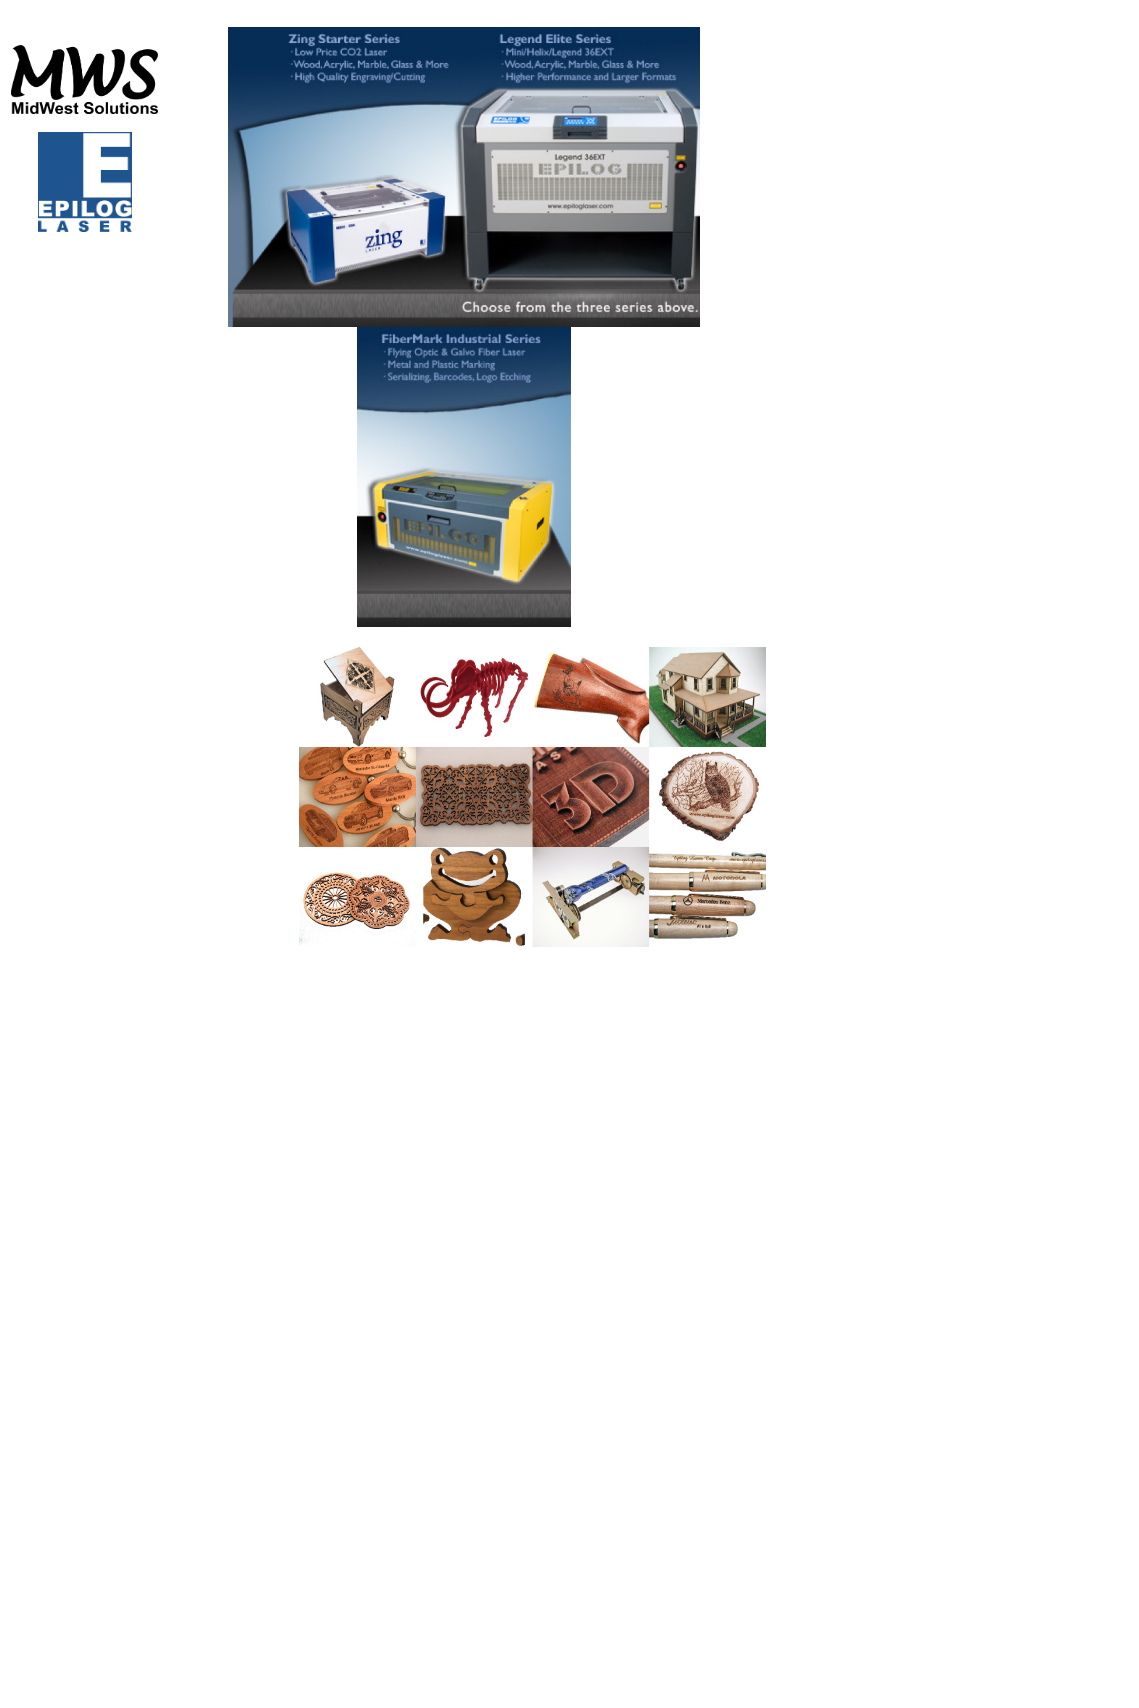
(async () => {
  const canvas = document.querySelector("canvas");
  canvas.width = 1139;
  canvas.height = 1708;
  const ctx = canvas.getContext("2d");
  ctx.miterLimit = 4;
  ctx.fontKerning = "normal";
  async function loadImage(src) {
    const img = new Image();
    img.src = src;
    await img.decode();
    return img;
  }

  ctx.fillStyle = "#ffffff";
  ctx.fillRect(0, 0, 1139, 1708);
  ctx.drawImage(await loadImage("img/1.png"), 11, 45, 147, 69);
  ctx.drawImage(await loadImage("img/2.png"), 38, 132, 94, 100);
  ctx.drawImage(await loadImage("img/3.png"), 228, 27, 230, 300);
  ctx.drawImage(await loadImage("img/4.png"), 458, 27, 242, 300);
  ctx.drawImage(await loadImage("img/5.png"), 357, 327, 214, 300);
  ctx.drawImage(await loadImage("img/6.png"), 299, 647, 467, 300);
})();
